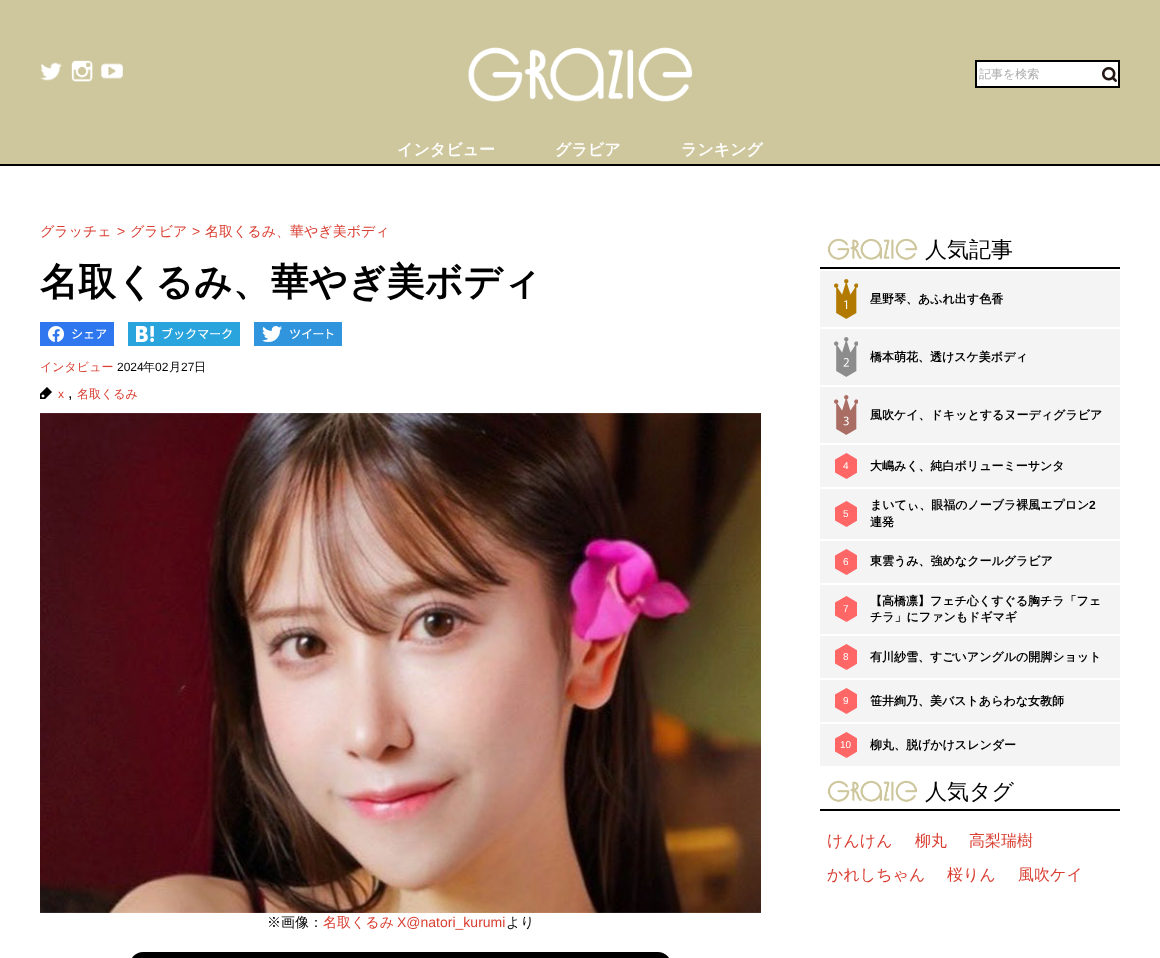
(async () => {
  const canvas = document.querySelector("canvas");
  canvas.width = 1160;
  canvas.height = 958;
  const ctx = canvas.getContext("2d");
  ctx.miterLimit = 4;
  ctx.fontKerning = "normal";
  async function loadImage(src) {
    const img = new Image();
    img.src = src;
    await img.decode();
    return img;
  }
  let path;

  ctx.fillStyle = "#ffffff";
  ctx.fillRect(0, 0, 1160, 958);
  ctx.fillStyle = "#cec79d";
  ctx.fillRect(0, 0, 1160, 164);
  ctx.fillStyle = "#000000";
  ctx.fillRect(0, 164, 1160, 2);
  ctx.drawImage(await loadImage("img/1.png"), 40, 62, 22, 19);
  ctx.drawImage(await loadImage("img/2.png"), 71, 60, 22, 22);
  ctx.drawImage(await loadImage("img/3.png"), 101, 63, 22, 16);
  ctx.drawImage(await loadImage("img/4.png"), 468, 47, 225, 55);
  for (const [x, y, w, h, color] of [
    [977, 62, 141, 24, "#ffffff"],
    [975, 60, 145, 2, "#000000"],
    [975, 86, 127, 2, "#000000"],
    [975, 60, 2, 28, "#000000"],
    [1118, 60, 2, 28, "#000000"],
    [1102, 86, 18, 2, "#000000"],
  ]) {
    ctx.fillStyle = color;
    ctx.fillRect(x, y, w, h);
  }
  ctx.drawImage(await loadImage("img/5.png"), 1102, 67, 15, 15);
  ctx.drawImage(await loadImage("img/6.png"), 40, 322, 74, 24);
  ctx.drawImage(await loadImage("img/7.png"), 128, 322, 112, 24);
  ctx.drawImage(await loadImage("img/8.png"), 254, 322, 88, 24);
  ctx.drawImage(await loadImage("img/9.png"), 40, 387, 12, 12);
  ctx.drawImage(await loadImage("img/10.png"), 40, 413, 721, 500);
  ctx.beginPath();
  ctx.roundRect(130, 952, 541, 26, 20);
  ctx.fill();
  ctx.fillRect(820, 267, 300, 2);
  ctx.drawImage(await loadImage("img/11.png"), 827, 238, 91, 22);
  ctx.fillStyle = "#f4f4f4";
  ctx.fillRect(820, 271, 300, 56);
  ctx.drawImage(await loadImage("img/12.png"), 834, 279, 24, 40);
  ctx.fillRect(820, 329, 300, 56);
  ctx.drawImage(await loadImage("img/13.png"), 834, 337, 24, 40);
  ctx.fillRect(820, 387, 300, 56);
  ctx.drawImage(await loadImage("img/14.png"), 834, 395, 24, 40);
  ctx.fillRect(820, 445, 300, 42);
  ctx.save();
  ctx.beginPath();
  ctx.rect(835, 453, 22, 26);
  ctx.clip();
  ctx.fillStyle = "#ff6666";
  path = new Path2D("M857.5 472.5V459.5L846.5 453L835 459.5V472.5L846.5 479Z");
  ctx.fill(path);
  ctx.restore();
  ctx.fillRect(820, 489, 300, 50);
  ctx.save();
  ctx.beginPath();
  ctx.rect(835, 501, 22, 26);
  ctx.clip();
  ctx.fillStyle = "#ff6666";
  path = new Path2D("M857.5 520.5V507.5L846.5 501L835 507.5V520.5L846.5 527Z");
  ctx.fill(path);
  ctx.restore();
  ctx.fillRect(820, 541, 300, 42);
  ctx.save();
  ctx.beginPath();
  ctx.rect(835, 549, 22, 26);
  ctx.clip();
  ctx.fillStyle = "#ff6666";
  path = new Path2D("M857.5 568.5V555.5L846.5 549L835 555.5V568.5L846.5 575Z");
  ctx.fill(path);
  ctx.restore();
  ctx.fillRect(820, 585, 300, 49);
  ctx.save();
  ctx.beginPath();
  ctx.rect(835, 596, 22, 26);
  ctx.clip();
  ctx.fillStyle = "#ff6666";
  path = new Path2D("M857.5 615.5V602.5L846.5 596L835 602.5V615.5L846.5 622Z");
  ctx.fill(path);
  ctx.restore();
  ctx.fillRect(820, 636, 300, 42);
  ctx.save();
  ctx.beginPath();
  ctx.rect(835, 644, 22, 26);
  ctx.clip();
  ctx.fillStyle = "#ff6666";
  path = new Path2D("M857.5 663.5V650.5L846.5 644L835 650.5V663.5L846.5 670Z");
  ctx.fill(path);
  ctx.restore();
  ctx.fillRect(820, 680, 300, 42);
  ctx.save();
  ctx.beginPath();
  ctx.rect(835, 688, 22, 26);
  ctx.clip();
  ctx.fillStyle = "#ff6666";
  path = new Path2D("M857.5 707.5V694.5L846.5 688L835 694.5V707.5L846.5 714Z");
  ctx.fill(path);
  ctx.restore();
  ctx.fillRect(820, 724, 300, 42);
  ctx.save();
  ctx.beginPath();
  ctx.rect(835, 732, 22, 26);
  ctx.clip();
  ctx.fillStyle = "#ff6666";
  path = new Path2D("M857.5 751.5V738.5L846.5 732L835 738.5V751.5L846.5 758Z");
  ctx.fill(path);
  ctx.restore();
  ctx.fillStyle = "#000000";
  ctx.fillRect(820, 809, 300, 2);
  ctx.drawImage(await loadImage("img/11.png"), 827, 780, 91, 22);
  ctx.font = "500 12px WenQuanYi Zen Hei";
  ctx.fillStyle = "#aaaaaa";
  ctx.fillText("記事を検索", 979, 78);
  ctx.font = "bold 16px WenQuanYi Zen Hei";
  ctx.fillStyle = "#ffffff";
  for (const [text, x, y] of [
    ["インタビュー", 397, 155],
    ["グラビア", 555, 155],
    ["ランキング", 681, 155],
  ]) {
    ctx.fillText(text, x, y);
  }
  ctx.font = "500 14px WenQuanYi Zen Hei";
  ctx.fillStyle = "#d93e31";
  ctx.fillText("グラッチェ", 40, 236);
  ctx.font = "14px Liberation Sans";
  ctx.fillText(">", 117, 236);
  ctx.font = "500 14px WenQuanYi Zen Hei";
  ctx.fillText("グラビア", 130, 236);
  ctx.font = "14px Liberation Sans";
  ctx.fillText(">", 192, 236);
  ctx.font = "500 14px WenQuanYi Zen Hei";
  ctx.fillText("名取くるみ、華やぎ美ボディ", 205, 236);
  ctx.font = "bold 38px WenQuanYi Zen Hei";
  ctx.fillStyle = "#000000";
  ctx.fillText("名取くるみ、華やぎ美ボディ", 40, 295);
  ctx.font = "500 12px WenQuanYi Zen Hei";
  ctx.fillStyle = "#d93e31";
  ctx.fillText("インタビュー", 40, 371);
  ctx.font = "12px Liberation Sans";
  ctx.fillStyle = "#000000";
  ctx.fillText("2024", 117, 371);
  ctx.font = "500 12px WenQuanYi Zen Hei";
  ctx.fillText("年", 143, 371);
  ctx.font = "12px Liberation Sans";
  ctx.fillText("02", 155, 371);
  ctx.font = "500 12px WenQuanYi Zen Hei";
  ctx.fillText("月", 169, 371);
  ctx.font = "12px Liberation Sans";
  ctx.fillText("27", 181, 371);
  ctx.font = "500 12px WenQuanYi Zen Hei";
  ctx.fillText("日", 194, 371);
  ctx.font = "12px Liberation Sans";
  ctx.fillStyle = "#d93e31";
  ctx.fillText("x", 58, 398);
  ctx.font = "500 12px WenQuanYi Zen Hei";
  ctx.fillText("名取くるみ", 77, 398);
  ctx.font = "16px Liberation Sans";
  ctx.fillStyle = "#000000";
  ctx.fillText(",", 68, 398);
  ctx.font = "500 14px WenQuanYi Zen Hei";
  ctx.fillText("※画像：", 267, 927);
  ctx.fillStyle = "#d93e31";
  ctx.fillText("名取くるみ", 323, 927);
  ctx.font = "14px Liberation Sans";
  ctx.fillText("X@natori_kurumi", 397, 927);
  ctx.font = "500 14px WenQuanYi Zen Hei";
  ctx.fillStyle = "#000000";
  ctx.fillText("より", 506, 927);
  ctx.font = "500 22px WenQuanYi Zen Hei";
  ctx.fillText("人気記事", 925, 257);
  ctx.font = "bold 12px WenQuanYi Zen Hei";
  for (const [text, x, y] of [
    ["星野琴、あふれ出す色香", 870, 303],
    ["橋本萌花、透けスケ美ボディ", 870, 361],
    ["風吹ケイ、ドキッとするヌーディグラビア", 870, 419],
  ]) {
    ctx.fillText(text, x, y);
  }
  ctx.font = "10px Liberation Sans";
  ctx.fillStyle = "#ffffff";
  ctx.fillText("4", 843, 469);
  ctx.font = "bold 12px WenQuanYi Zen Hei";
  ctx.fillStyle = "#000000";
  ctx.fillText("大嶋みく、純白ボリューミーサンタ", 870, 470);
  ctx.font = "10px Liberation Sans";
  ctx.fillStyle = "#ffffff";
  ctx.fillText("5", 843, 517);
  ctx.font = "bold 12px WenQuanYi Zen Hei";
  ctx.fillStyle = "#000000";
  ctx.fillText("まいてぃ、眼福のノーブラ裸風エプロン", 870, 509);
  ctx.font = "bold 12px Liberation Sans";
  ctx.fillText("2", 1089, 509);
  ctx.font = "bold 12px WenQuanYi Zen Hei";
  ctx.fillText("連発", 870, 526);
  ctx.font = "10px Liberation Sans";
  ctx.fillStyle = "#ffffff";
  ctx.fillText("6", 843, 565);
  ctx.font = "bold 12px WenQuanYi Zen Hei";
  ctx.fillStyle = "#000000";
  ctx.fillText("東雲うみ、強めなクールグラビア", 870, 565);
  ctx.font = "10px Liberation Sans";
  ctx.fillStyle = "#ffffff";
  ctx.fillText("7", 843, 612);
  ctx.font = "bold 12px WenQuanYi Zen Hei";
  ctx.fillStyle = "#000000";
  ctx.fillText("【高橋凛】フェチ心くすぐる胸チラ「フェ", 870, 605);
  ctx.fillText("チラ」にファンもドギマギ", 870, 621);
  ctx.font = "10px Liberation Sans";
  ctx.fillStyle = "#ffffff";
  ctx.fillText("8", 843, 660);
  ctx.font = "bold 12px WenQuanYi Zen Hei";
  ctx.fillStyle = "#000000";
  ctx.fillText("有川紗雪、すごいアングルの開脚ショット", 870, 661);
  ctx.font = "10px Liberation Sans";
  ctx.fillStyle = "#ffffff";
  ctx.fillText("9", 843, 704);
  ctx.font = "bold 12px WenQuanYi Zen Hei";
  ctx.fillStyle = "#000000";
  ctx.fillText("笹井絢乃、美バストあらわな女教師", 870, 705);
  ctx.font = "10px Liberation Sans";
  ctx.fillStyle = "#ffffff";
  ctx.fillText("10", 840, 748);
  ctx.font = "bold 12px WenQuanYi Zen Hei";
  ctx.fillStyle = "#000000";
  ctx.fillText("柳丸、脱げかけスレンダー", 870, 749);
  ctx.font = "500 22px WenQuanYi Zen Hei";
  ctx.fillText("人気タグ", 925, 799);
  ctx.font = "500 16px WenQuanYi Zen Hei";
  ctx.fillStyle = "#d93e31";
  for (const [text, x, y] of [
    ["けんけん", 827, 846],
    ["柳丸", 915, 846],
    ["高梨瑞樹", 969, 846],
    ["かれしちゃん", 827, 880],
    ["桜りん", 947, 880],
    ["風吹ケイ", 1018, 880],
  ]) {
    ctx.fillText(text, x, y);
  }
})();
